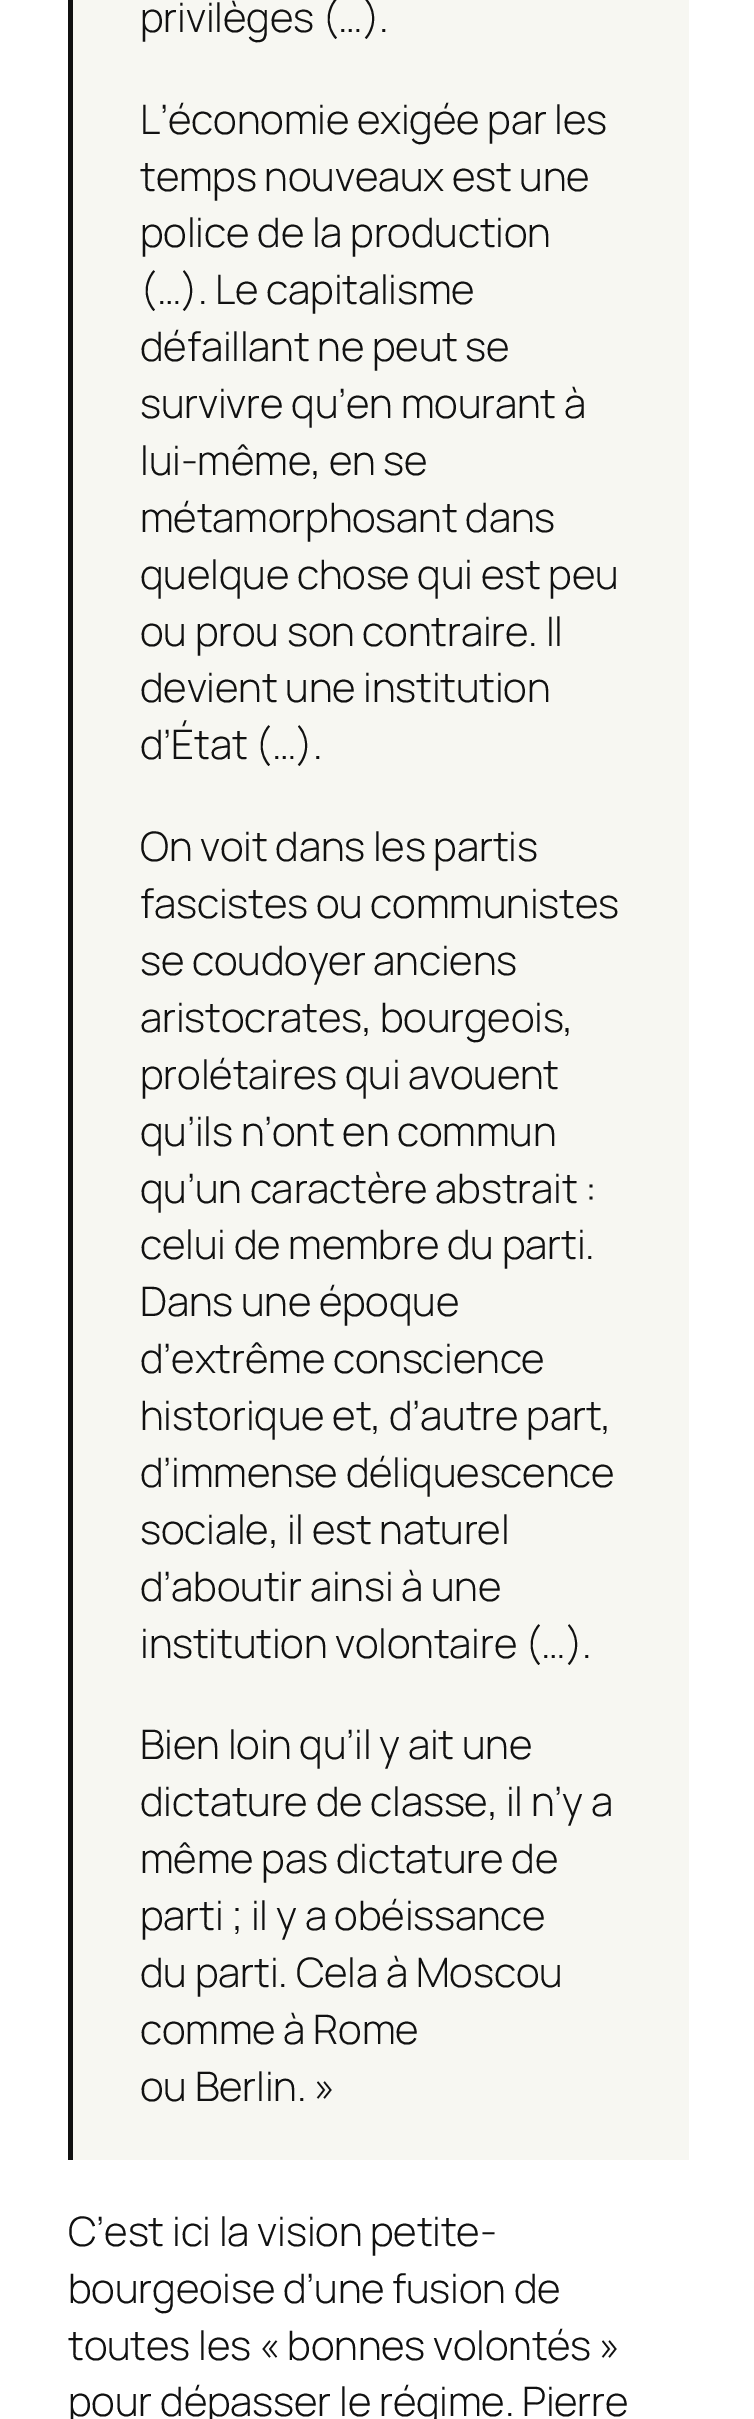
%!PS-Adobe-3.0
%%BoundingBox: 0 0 754 2419
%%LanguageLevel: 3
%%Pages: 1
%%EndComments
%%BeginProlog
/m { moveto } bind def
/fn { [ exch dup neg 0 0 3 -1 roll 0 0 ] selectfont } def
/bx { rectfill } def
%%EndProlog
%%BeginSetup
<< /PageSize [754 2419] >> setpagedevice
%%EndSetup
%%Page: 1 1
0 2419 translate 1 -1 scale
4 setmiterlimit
1 setgray
0 0 754 2419 bx
0.969 0.969 0.949 setrgbcolor
73 0 616 2160 bx
0.067 setgray
68 0 5 2160 bx
/Manrope-Light 40.6 fn
140 32 m -0.25 0 (privilèges \(…\).) ashow
140 134 m -0.25 0 (L’économie exigée par les) ashow
140 191 m -0.25 0 (temps nouveaux est une) ashow
140 247 m -0.25 0 (police de la production) ashow
140 304 m -0.25 0 (\(…\). Le capitalisme) ashow
140 361 m -0.25 0 (défaillant ne peut se) ashow
140 418 m -0.25 0 (survivre qu’en mourant à) ashow
140 475 m -0.25 0 (lui-même, en se) ashow
140 532 m -0.25 0 (métamorphosant dans) ashow
140 589 m -0.25 0 (quelque chose qui est peu) ashow
140 646 m -0.25 0 (ou prou son contraire. Il) ashow
140 702 m -0.25 0 (devient une institution) ashow
140 759 m -0.25 0 (d’État \(…\).) ashow
140 861 m -0.25 0 (On voit dans les partis) ashow
140 918 m -0.25 0 (fascistes ou communistes) ashow
140 975 m -0.25 0 (se coudoyer anciens) ashow
140 1032 m -0.25 0 (aristocrates, bourgeois,) ashow
140 1089 m -0.25 0 (prolétaires qui avouent) ashow
140 1146 m -0.25 0 (qu’ils n’ont en commun) ashow
140 1203 m -0.25 0 (qu’un caractère abstrait :) ashow
140 1259 m -0.25 0 (celui de membre du parti.) ashow
140 1316 m -0.25 0 (Dans une époque) ashow
140 1373 m -0.25 0 (d’extrême conscience) ashow
140 1430 m -0.25 0 (historique et, d’autre part,) ashow
140 1487 m -0.25 0 (d’immense déliquescence) ashow
140 1544 m -0.25 0 (sociale, il est naturel) ashow
140 1601 m -0.25 0 (d’aboutir ainsi à une) ashow
140 1658 m -0.25 0 (institution volontaire \(…\).) ashow
140 1759 m -0.25 0 (Bien loin qu’il y ait une) ashow
140 1816 m -0.25 0 (dictature de classe, il n’y a) ashow
140 1873 m -0.25 0 (même pas dictature de) ashow
140 1930 m -0.25 0 (parti ; il y a obéissance) ashow
140 1987 m -0.25 0 (du parti. Cela à Moscou) ashow
140 2044 m -0.25 0 (comme à Rome) ashow
140 2101 m -0.25 0 (ou Berlin. ») ashow
68 2246 m -0.25 0 (C’est ici la vision petite-) ashow
68 2303 m -0.25 0 (bourgeoise d’une fusion de) ashow
68 2360 m -0.25 0 (toutes les « bonnes volontés ») ashow
68 2416 m -0.25 0 (pour dépasser le régime. Pierre) ashow
showpage
%%EOF
